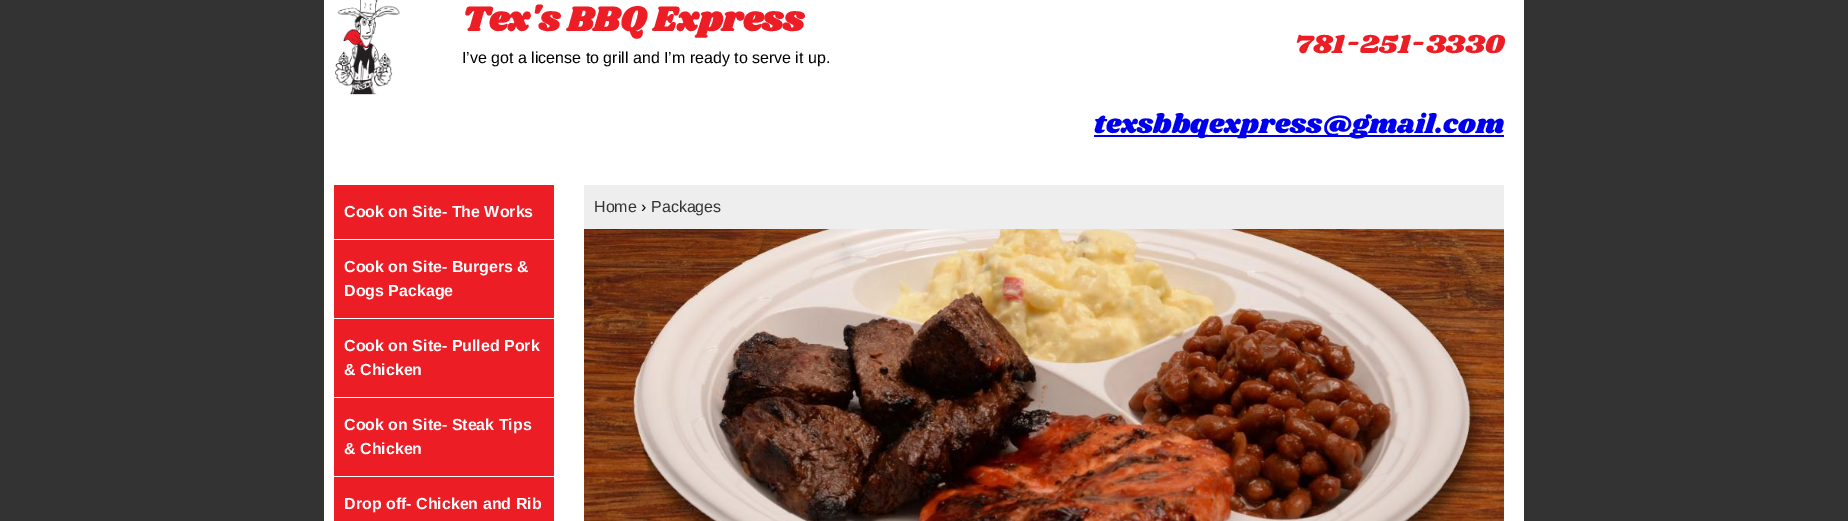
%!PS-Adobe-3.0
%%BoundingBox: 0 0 1848 521
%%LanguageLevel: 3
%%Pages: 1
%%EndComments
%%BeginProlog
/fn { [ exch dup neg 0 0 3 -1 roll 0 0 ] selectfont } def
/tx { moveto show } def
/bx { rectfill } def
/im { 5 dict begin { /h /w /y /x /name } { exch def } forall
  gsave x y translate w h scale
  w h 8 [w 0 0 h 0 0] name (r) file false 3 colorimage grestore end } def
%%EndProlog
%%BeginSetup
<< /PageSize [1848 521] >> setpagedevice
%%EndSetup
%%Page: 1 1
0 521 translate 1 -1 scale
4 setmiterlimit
0.2 setgray
0 0 1848 521 bx
1 setgray
324 0 1200 521 bx
(image0.raw) 335 0 65 95 im
/Shrikhand-Bold 35.25 fn
0.929 0.114 0.145 setrgbcolor
(Tex's BBQ Express) 462 31 tx
/LiberationSans-Regular 16 fn
0 setgray
(I’ve got a license to grill and I’m ready to serve it up.) 462 63 tx
/Shrikhand-Regular 27.25 fn
0.929 0.114 0.145 setrgbcolor
(781-251-3330) 1295 53 tx
0 0 0.933 setrgbcolor
1094 135 410 2 bx
(texsbbqexpress@gmail.com) 1094 133 tx
0.929 0.114 0.149 setrgbcolor
334 185 220 54 bx
/LiberationSans-Bold 16 fn
1 setgray
(Cook on Site- The Works) 344 217 tx
0.929 0.114 0.149 setrgbcolor
334 240 220 78 bx
1 setgray
(Cook on Site- Burgers &) 344 272 tx
(Dogs Package) 344 296 tx
0.929 0.114 0.149 setrgbcolor
334 319 220 78 bx
1 setgray
(Cook on Site- Pulled Pork) 344 351 tx
(& Chicken) 344 375 tx
0.929 0.114 0.149 setrgbcolor
334 398 220 78 bx
1 setgray
(Cook on Site- Steak Tips) 344 430 tx
(& Chicken) 344 454 tx
0.929 0.114 0.149 setrgbcolor
334 477 220 44 bx
1 setgray
(Drop off- Chicken and Rib) 344 509 tx
0.933 setgray
584 185 920 44 bx
/LiberationSans-Regular 16 fn
0.2 setgray
(Home) 594 212 tx
0 setgray
(›) 641 212 tx
0.2 setgray
(Packages) 651 212 tx
(image1.raw) 584 229 920 292 im
showpage
%%EOF
